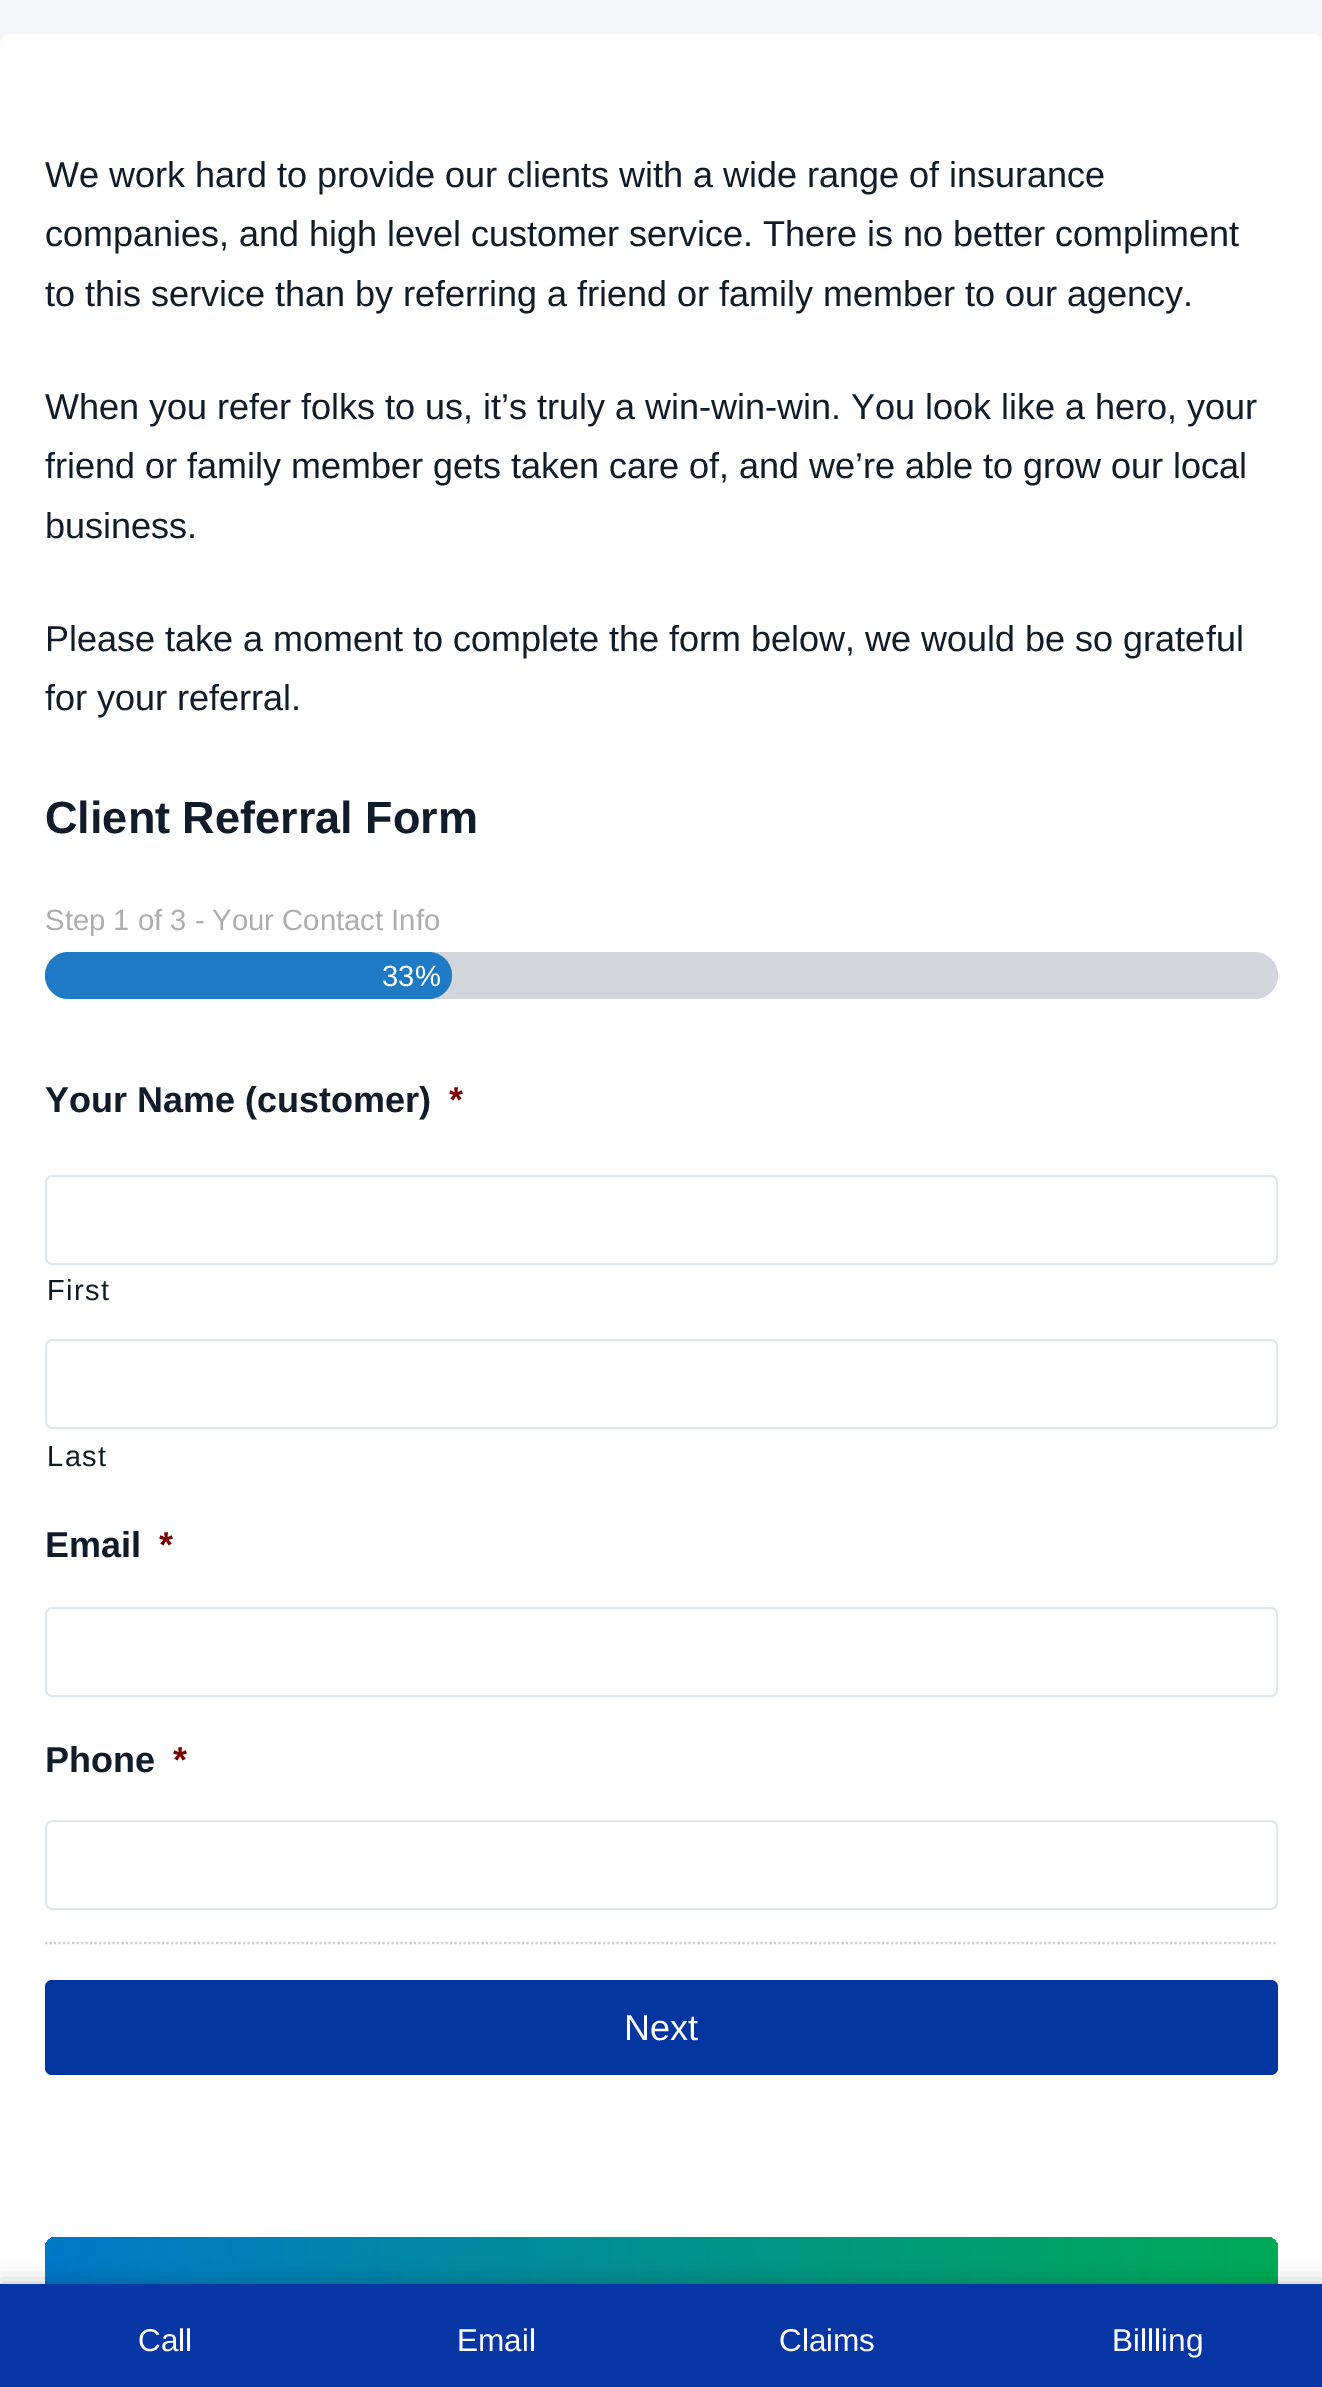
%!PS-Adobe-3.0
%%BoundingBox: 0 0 1322 2387
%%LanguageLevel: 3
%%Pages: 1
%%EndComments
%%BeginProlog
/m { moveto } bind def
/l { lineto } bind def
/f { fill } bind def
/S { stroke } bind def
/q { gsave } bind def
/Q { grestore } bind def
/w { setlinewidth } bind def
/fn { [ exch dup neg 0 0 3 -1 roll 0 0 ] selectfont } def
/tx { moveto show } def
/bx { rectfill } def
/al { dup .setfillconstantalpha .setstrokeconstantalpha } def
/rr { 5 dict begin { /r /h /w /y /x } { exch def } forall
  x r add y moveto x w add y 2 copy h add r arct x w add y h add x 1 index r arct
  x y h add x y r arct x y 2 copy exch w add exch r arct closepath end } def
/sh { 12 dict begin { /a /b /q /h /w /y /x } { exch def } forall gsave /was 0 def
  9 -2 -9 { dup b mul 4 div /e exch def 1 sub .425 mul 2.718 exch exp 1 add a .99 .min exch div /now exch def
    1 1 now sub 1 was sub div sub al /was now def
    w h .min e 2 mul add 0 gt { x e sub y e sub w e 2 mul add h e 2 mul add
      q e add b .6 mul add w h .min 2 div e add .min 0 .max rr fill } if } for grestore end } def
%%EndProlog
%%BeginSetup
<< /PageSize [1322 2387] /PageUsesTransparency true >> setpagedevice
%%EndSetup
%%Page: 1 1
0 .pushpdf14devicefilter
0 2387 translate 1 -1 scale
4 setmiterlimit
0.953 0.961 0.976 setrgbcolor
0 0 1322 2387 bx
1 setgray
0 34 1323 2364 11 rr f
/LiberationSans-Regular 36 fn
0.067 0.11 0.165 setrgbcolor
(We work hard to provide our clients with a wide range of insurance) 45 187 tx
(companies, and high level customer service. There is no better compliment) 45 246 tx
(to this service than by referring a friend or family member to our agency.) 45 306 tx
(When you refer folks to us, it’s truly a win-win-win. You look like a hero, your) 45 419 tx
(friend or family member gets taken care of, and we’re able to grow our local) 45 478 tx
(business.) 45 538 tx
(Please take a moment to complete the form below, we would be so grateful) 45 651 tx
(for your referral.) 45 710 tx
/LiberationSans-Bold 45 fn
(Client Referral Form) 45 833 tx
/LiberationSans-Regular 29.25 fn
0.678 setgray
(Step 1 of 3 - Your Contact Info) 45 930 tx
0.824 0.839 0.863 setrgbcolor
45 952 1233 47 23.5 rr f
0.118 0.478 0.769 setrgbcolor
45 952 407 47 23.5 rr f
1 setgray
(33%) 382 986 tx
/LiberationSans-Bold 36 fn
0.067 0.11 0.165 setrgbcolor
(Your Name \(customer\)) 45 1112 tx
0.475 0 0 setrgbcolor
(*) 449 1112 tx
0.882 0.91 0.929 setrgbcolor
2 w
46 1176 1231 88 6 rr S
/LiberationSans-Regular 29 fn
0.067 0.11 0.165 setrgbcolor
47 1300 m 1.5 0 (First) ashow
0.882 0.91 0.929 setrgbcolor
46 1340 1231 88 6 rr S
0.067 0.11 0.165 setrgbcolor
47 1466 m 1.5 0 (Last) ashow
/LiberationSans-Bold 36 fn
(Email) 45 1557 tx
0.475 0 0 setrgbcolor
(*) 159 1557 tx
0.882 0.91 0.929 setrgbcolor
46 1608 1231 88 6 rr S
0.067 0.11 0.165 setrgbcolor
(Phone) 45 1772 tx
0.475 0 0 setrgbcolor
(*) 173 1772 tx
0.882 0.91 0.929 setrgbcolor
46 1821 1231 88 6 rr S
0.8 setgray
2.2 w
[2.25 2.25] 0 setdash
45 1943 m 1278 1943 l S
0.012 0.208 0.627 setrgbcolor
45 1980 1233 95 7 rr f
/LiberationSans-Regular 36 fn
1 setgray
(Next) 624 2040 tx
q 45 2237 1233 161 11 rr clip newpath
<< /ShadingType 2 /ColorSpace /DeviceRGB /Coords [45 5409 1278 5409] /Extend [true true] /Function << /FunctionType 2 /Domain [0 1] /C0 [0 0.471 0.788] /C1 [0 0.667 0.337] /N 1 >> >> shfill Q
0 setgray
0 2284 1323 103 0 10 0.25 sh
0.031 0.216 0.647 setrgbcolor
0 2284 1322 103 bx
/LiberationSans-Regular 31.5 fn
1 setgray
(Call) 138 2351 tx
(Email) 457 2351 tx
(Claims) 779 2351 tx
(Billling) 1112 2351 tx
.poppdf14devicefilter showpage
%%EOF
